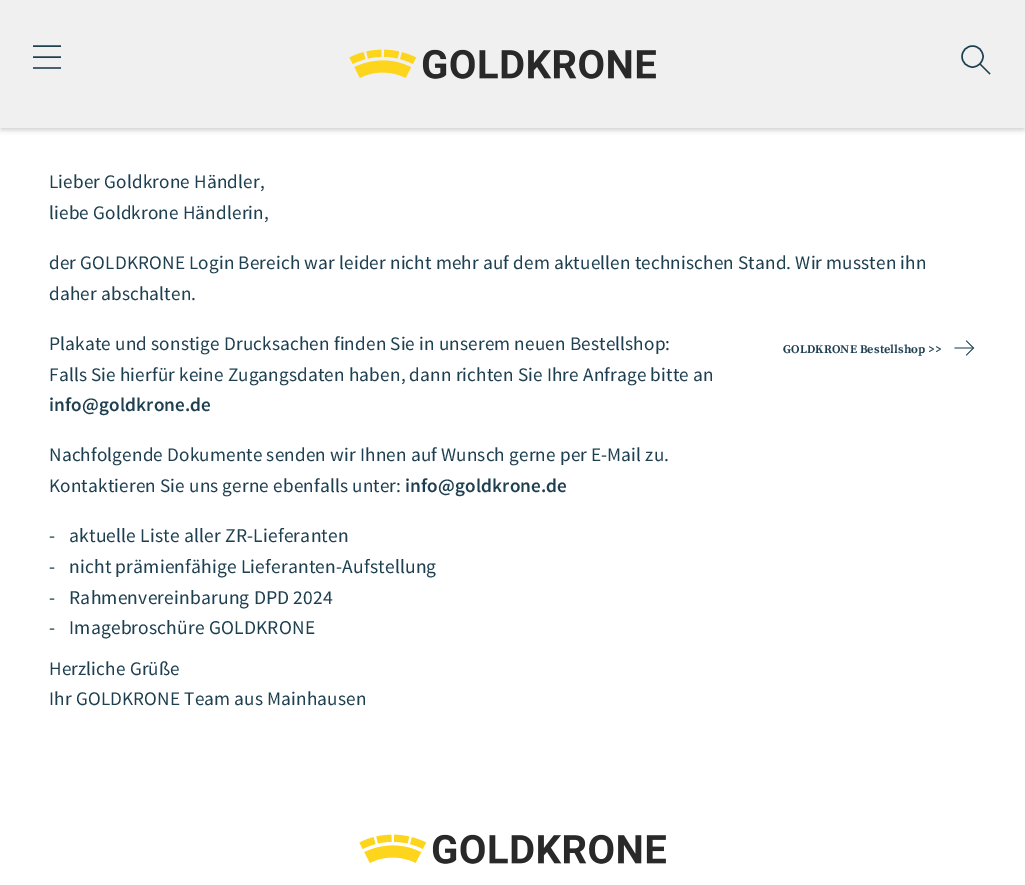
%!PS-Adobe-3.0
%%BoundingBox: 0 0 1025 885
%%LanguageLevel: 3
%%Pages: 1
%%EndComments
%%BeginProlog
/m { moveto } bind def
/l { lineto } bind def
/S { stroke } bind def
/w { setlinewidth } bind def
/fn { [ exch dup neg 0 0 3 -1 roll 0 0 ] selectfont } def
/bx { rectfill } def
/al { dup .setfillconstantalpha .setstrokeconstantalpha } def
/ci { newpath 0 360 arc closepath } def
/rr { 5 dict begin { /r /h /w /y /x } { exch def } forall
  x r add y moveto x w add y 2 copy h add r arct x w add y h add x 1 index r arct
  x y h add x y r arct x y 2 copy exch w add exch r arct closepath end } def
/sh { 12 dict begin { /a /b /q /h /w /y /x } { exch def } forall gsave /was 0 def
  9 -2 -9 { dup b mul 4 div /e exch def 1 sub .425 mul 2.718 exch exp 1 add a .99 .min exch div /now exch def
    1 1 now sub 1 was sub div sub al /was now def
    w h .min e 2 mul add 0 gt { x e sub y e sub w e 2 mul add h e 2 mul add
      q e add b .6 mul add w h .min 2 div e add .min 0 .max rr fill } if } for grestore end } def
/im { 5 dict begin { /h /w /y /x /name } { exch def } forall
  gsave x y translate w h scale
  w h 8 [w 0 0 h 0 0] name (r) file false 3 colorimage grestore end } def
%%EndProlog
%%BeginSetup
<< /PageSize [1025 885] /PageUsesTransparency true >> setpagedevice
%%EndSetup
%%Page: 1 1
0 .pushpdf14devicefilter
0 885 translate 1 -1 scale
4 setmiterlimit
1 setgray
0 0 1025 885 bx
0 setgray
1 4 1023 126 0 2.5 0.19 sh
0.941 setgray
0 0 1025 128 bx
0.118 0.247 0.314 setrgbcolor
1.6 w
33 46 m 61 46 l 33 57 m 61 57 l S
0.282 0.384 0.439 setrgbcolor
33 67 28 2 bx
(image0.raw) 349 49 307 30 im
0.118 0.247 0.314 setrgbcolor
1.4 w
972.5 56.5 10.5 ci S
1 setlinejoin
979.5 63.5 m 990 74 l S
/SourceSansPro-Regular 19.2 fn
49 188 m 0.15 0 (Lieber Goldkrone Händler,) ashow
49 219 m 0.15 0 (liebe Goldkrone Händlerin,) ashow
49 269 m 0.15 0 (der GOLDKRONE Login Bereich war leider nicht mehr auf dem aktuellen technischen Stand. Wir mussten ihn) ashow
49 300 m 0.15 0 (daher abschalten.) ashow
49 350 m 0.15 0 (Plakate und sonstige Drucksachen finden Sie in unserem neuen Bestellshop:) ashow
/SourceSerifPro-Bold 12 fn
783 353 m 0.1 0 (GOLDKRONE Bestellshop >>) ashow
(image1.raw) 954 340 21 16 im
/SourceSansPro-Regular 19.2 fn
49 381 m 0.15 0 (Falls Sie hierfür keine Zugangsdaten haben, dann richten Sie Ihre Anfrage bitte an) ashow
/SourceSansPro-SemiBold 19.2 fn
49 411 m 0.15 0 (info@goldkrone.de) ashow
/SourceSansPro-Regular 19.2 fn
49 461 m 0.15 0 (Nachfolgende Dokumente senden wir Ihnen auf Wunsch gerne per E-Mail zu.) ashow
49 492 m 0.15 0 (Kontaktieren Sie uns gerne ebenfalls unter:) ashow
/SourceSansPro-SemiBold 19.2 fn
405 492 m 0.15 0 (info@goldkrone.de) ashow
/SourceSansPro-Regular 19.5 fn
49 542 m 0.15 0 (-) ashow
69 542 m 0.15 0 (aktuelle Liste aller ZR-Lieferanten) ashow
49 573 m 0.15 0 (-) ashow
69 573 m 0.15 0 (nicht prämienfähige Lieferanten-Aufstellung) ashow
49 604 m 0.15 0 (-) ashow
69 604 m 0.15 0 (Rahmenvereinbarung DPD 2024) ashow
49 634 m 0.15 0 (-) ashow
69 634 m 0.15 0 (Imagebroschüre GOLDKRONE) ashow
/SourceSansPro-Regular 19.2 fn
49 675 m 0.15 0 (Herzliche Grüße) ashow
49 705 m 0.15 0 (Ihr GOLDKRONE Team aus Mainhausen) ashow
(image2.raw) 359 834 307 30 im
.poppdf14devicefilter showpage
%%EOF
